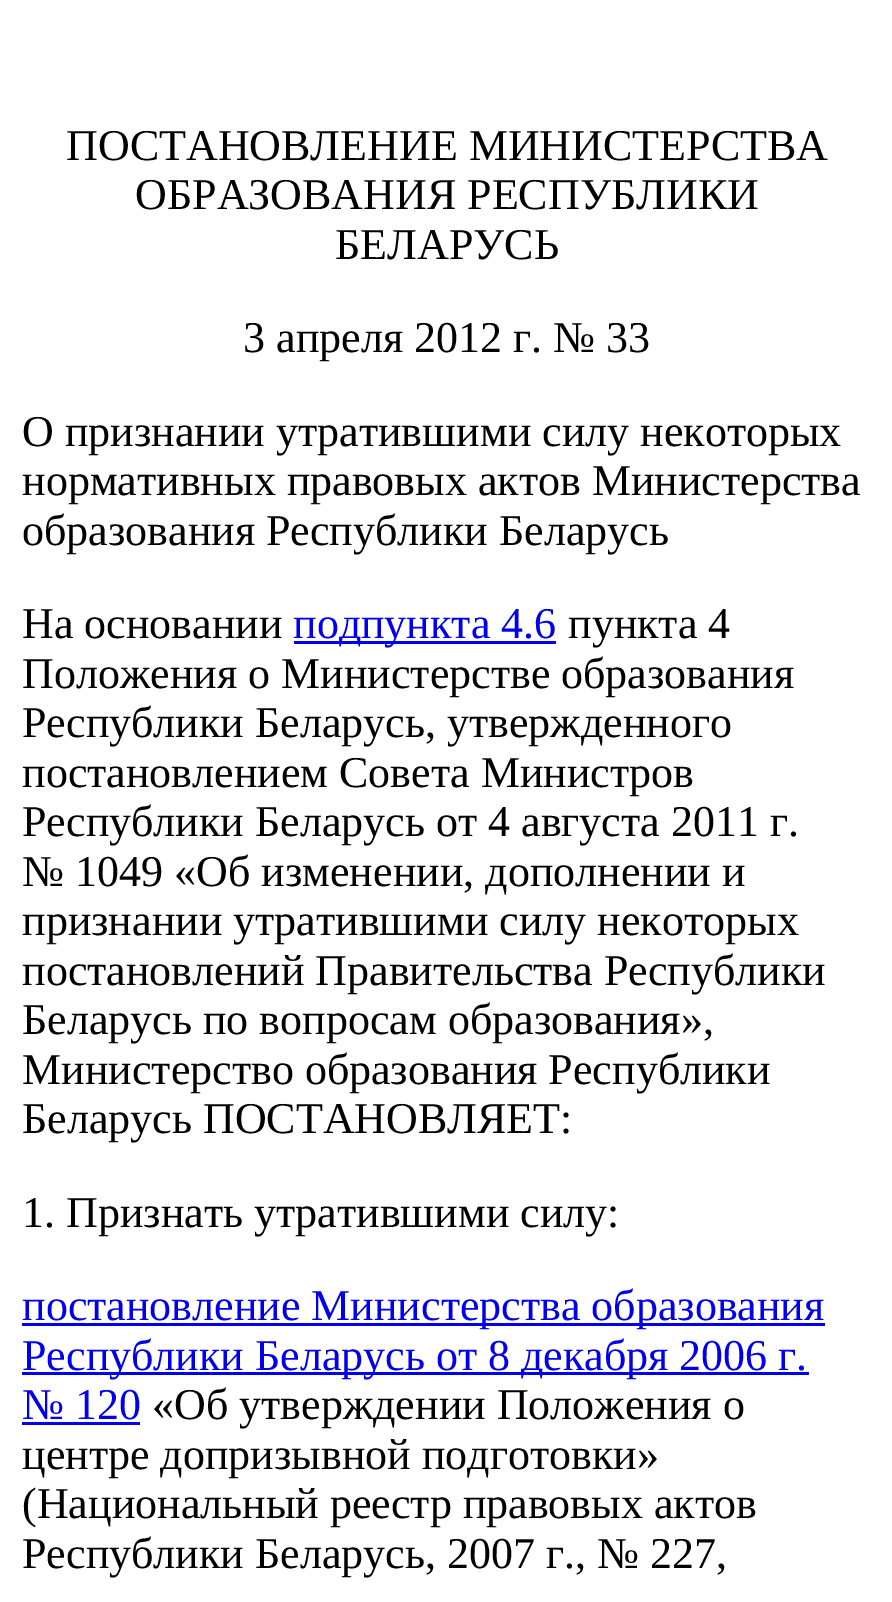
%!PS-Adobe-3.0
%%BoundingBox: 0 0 892 1602
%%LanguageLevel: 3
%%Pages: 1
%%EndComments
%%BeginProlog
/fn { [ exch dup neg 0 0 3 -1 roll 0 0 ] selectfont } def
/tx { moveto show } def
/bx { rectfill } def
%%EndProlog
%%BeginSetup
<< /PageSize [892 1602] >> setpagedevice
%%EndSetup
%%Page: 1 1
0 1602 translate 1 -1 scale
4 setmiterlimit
1 setgray
0 0 892 1602 bx
/LiberationSerif-Regular 44 fn
0 setgray
(ПОСТАНОВЛЕНИЕ МИНИСТЕРСТВА) 66 160 tx
(ОБРАЗОВАНИЯ РЕСПУБЛИКИ) 135 209 tx
(БЕЛАРУСЬ) 335 259 tx
(3 апреля 2012 г. № 33) 243 352 tx
(О признании утратившими силу некоторых) 22 446 tx
(нормативных правовых актов Министерства) 22 495 tx
(образования Республики Беларусь) 22 545 tx
(На основании) 22 638 tx
0 0 0.933 setrgbcolor
294 641 262 3 bx
(подпункта 4.6) 293 638 tx
0 setgray
(пункта 4) 568 638 tx
(Положения о Министерстве образования) 22 688 tx
(Республики Беларусь, утвержденного) 22 737 tx
(постановлением Совета Министров) 22 787 tx
(Республики Беларусь от 4 августа 2011 г.) 22 836 tx
(№ 1049 «Об изменении, дополнении и) 22 886 tx
(признании утратившими силу некоторых) 22 935 tx
(постановлений Правительства Республики) 22 985 tx
(Беларусь по вопросам образования»,) 22 1034 tx
(Министерство образования Республики) 22 1084 tx
(Беларусь ПОСТАНОВЛЯЕТ:) 22 1133 tx
(1. Признать утратившими силу:) 22 1227 tx
0 0 0.933 setrgbcolor
22 1323 803 3 bx
(постановление Министерства образования) 22 1320 tx
22 1372 787 3 bx
(Республики Беларусь от 8 декабря 2006 г.) 22 1370 tx
(№ 120) 22 1419 tx
22 1422 118 3 bx
0 setgray
(«Об утверждении Положения о) 152 1419 tx
(центре допризывной подготовки») 22 1469 tx
(\(Национальный реестр правовых актов) 22 1518 tx
(Республики Беларусь, 2007 г., № 227,) 22 1568 tx
showpage
%%EOF
